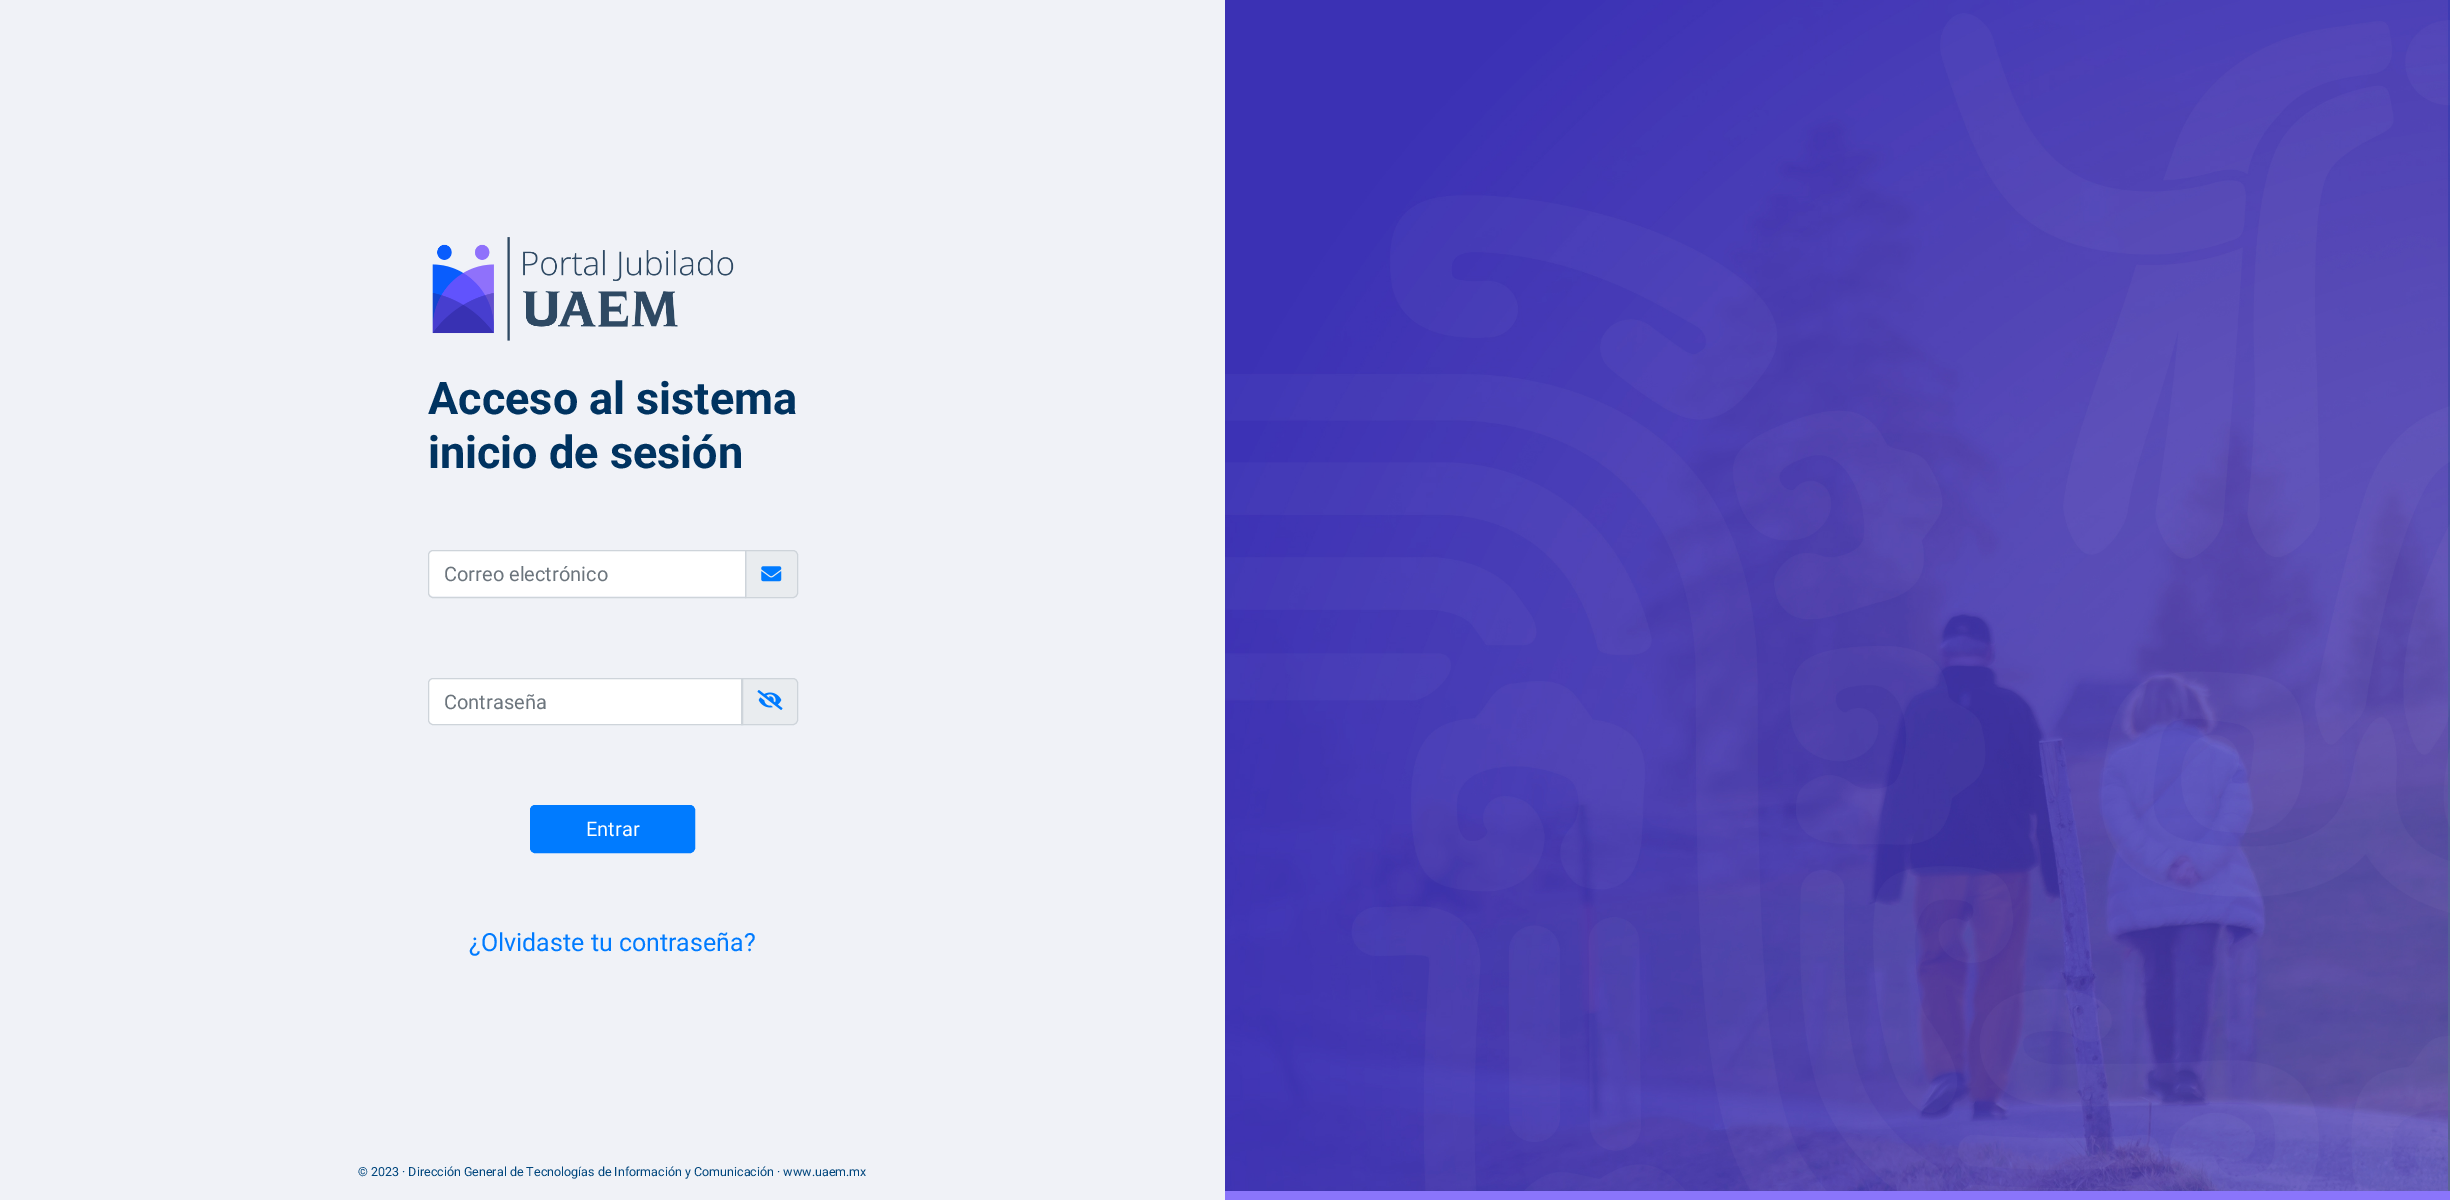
%!PS-Adobe-3.0
%%BoundingBox: 0 0 2450 1200
%%LanguageLevel: 3
%%Pages: 1
%%EndComments
%%BeginProlog
/m { moveto } bind def
/l { lineto } bind def
/c { curveto } bind def
/h { closepath } bind def
/f { fill } bind def
/S { stroke } bind def
/q { gsave } bind def
/Q { grestore } bind def
/fn { [ exch dup neg 0 0 3 -1 roll 0 0 ] selectfont } def
/tx { moveto show } def
/bx { rectfill } def
/rr { 5 dict begin { /r /h /w /y /x } { exch def } forall
  x r add y moveto x w add y 2 copy h add r arct x w add y h add x 1 index r arct
  x y h add x y r arct x y 2 copy exch w add exch r arct closepath end } def
/im { 5 dict begin { /h /w /y /x /name } { exch def } forall
  gsave x y translate w h scale
  w h 8 [w 0 0 h 0 0] name (r) file false 3 colorimage grestore end } def
%%EndProlog
%%BeginSetup
<< /PageSize [2450 1200] >> setpagedevice
%%EndSetup
%%Page: 1 1
0 1200 translate 1 -1 scale
4 setmiterlimit
0.941 0.949 0.969 setrgbcolor
0 0 2450 1200 bx
(image0.raw) 432 237 302 104 im
/Roboto-Bold 45 fn
0 0.2 0.376 setrgbcolor
(Acceso al sistema) 428 414 tx
(inicio de sesión) 428 468 tx
1 setgray
433 551 m 745 551 l 745 596 l 433 596 l 431 596 429 594 429 592 c 429 555 l 429 553 431 551 433 551 c h f
0.914 0.925 0.937 setrgbcolor
745.5 550.5 m 793 550.5 l 795.5 550.5 797.5 552.5 797.5 555 c 797.5 593 l 797.5 595.5 795.5 597.5 793 597.5 c 745.5 597.5 l h q f Q
0.808 0.831 0.855 setrgbcolor
S
433 550.5 m 745.5 550.5 l 745.5 597.5 l 433 597.5 l 430.5 597.5 428.5 595.5 428.5 593 c 428.5 555 l 428.5 552.5 430.5 550.5 433 550.5 c h S
/Roboto-Regular 20 fn
0.424 0.459 0.49 setrgbcolor
(Correo electrónico) 444 581 tx
(image1.raw) 761 566 21 16 im
1 setgray
433 679 m 741 679 l 741 724 l 433 724 l 431 724 429 722 429 720 c 429 683 l 429 681 431 679 433 679 c h f
0.914 0.925 0.937 setrgbcolor
741.5 678.5 m 793 678.5 l 795.5 678.5 797.5 680.5 797.5 683 c 797.5 720 l 797.5 722.5 795.5 724.5 793 724.5 c 741.5 724.5 l h q f Q
0.808 0.831 0.855 setrgbcolor
S
433 678.5 m 742.5 678.5 l 742.5 724.5 l 433 724.5 l 430.5 724.5 428.5 722.5 428.5 720 c 428.5 683 l 428.5 680.5 430.5 678.5 433 678.5 c h S
0.424 0.459 0.49 setrgbcolor
(Contraseña) 444 709 tx
(image2.raw) 757 690 26 20 im
0 0.482 1 setrgbcolor
530.5 805.5 164 47 4.5 rr q f Q
S
1 setgray
(Entrar) 586 836 tx
/Roboto-Regular 25 fn
0 0.482 1 setrgbcolor
(¿Olvidaste tu contraseña?) 469 951 tx
/Roboto-Regular 12.5 fn
0 0.275 0.49 setrgbcolor
(© 2023 · Dirección General de Tecnologías de Información y Comunicación · www.uaem.mx) 358 1176 tx
(image3.raw) 1225 0 1225 1191 im
0.541 0.459 0.984 setrgbcolor
1225 1191 1225 9 bx
showpage
%%EOF
